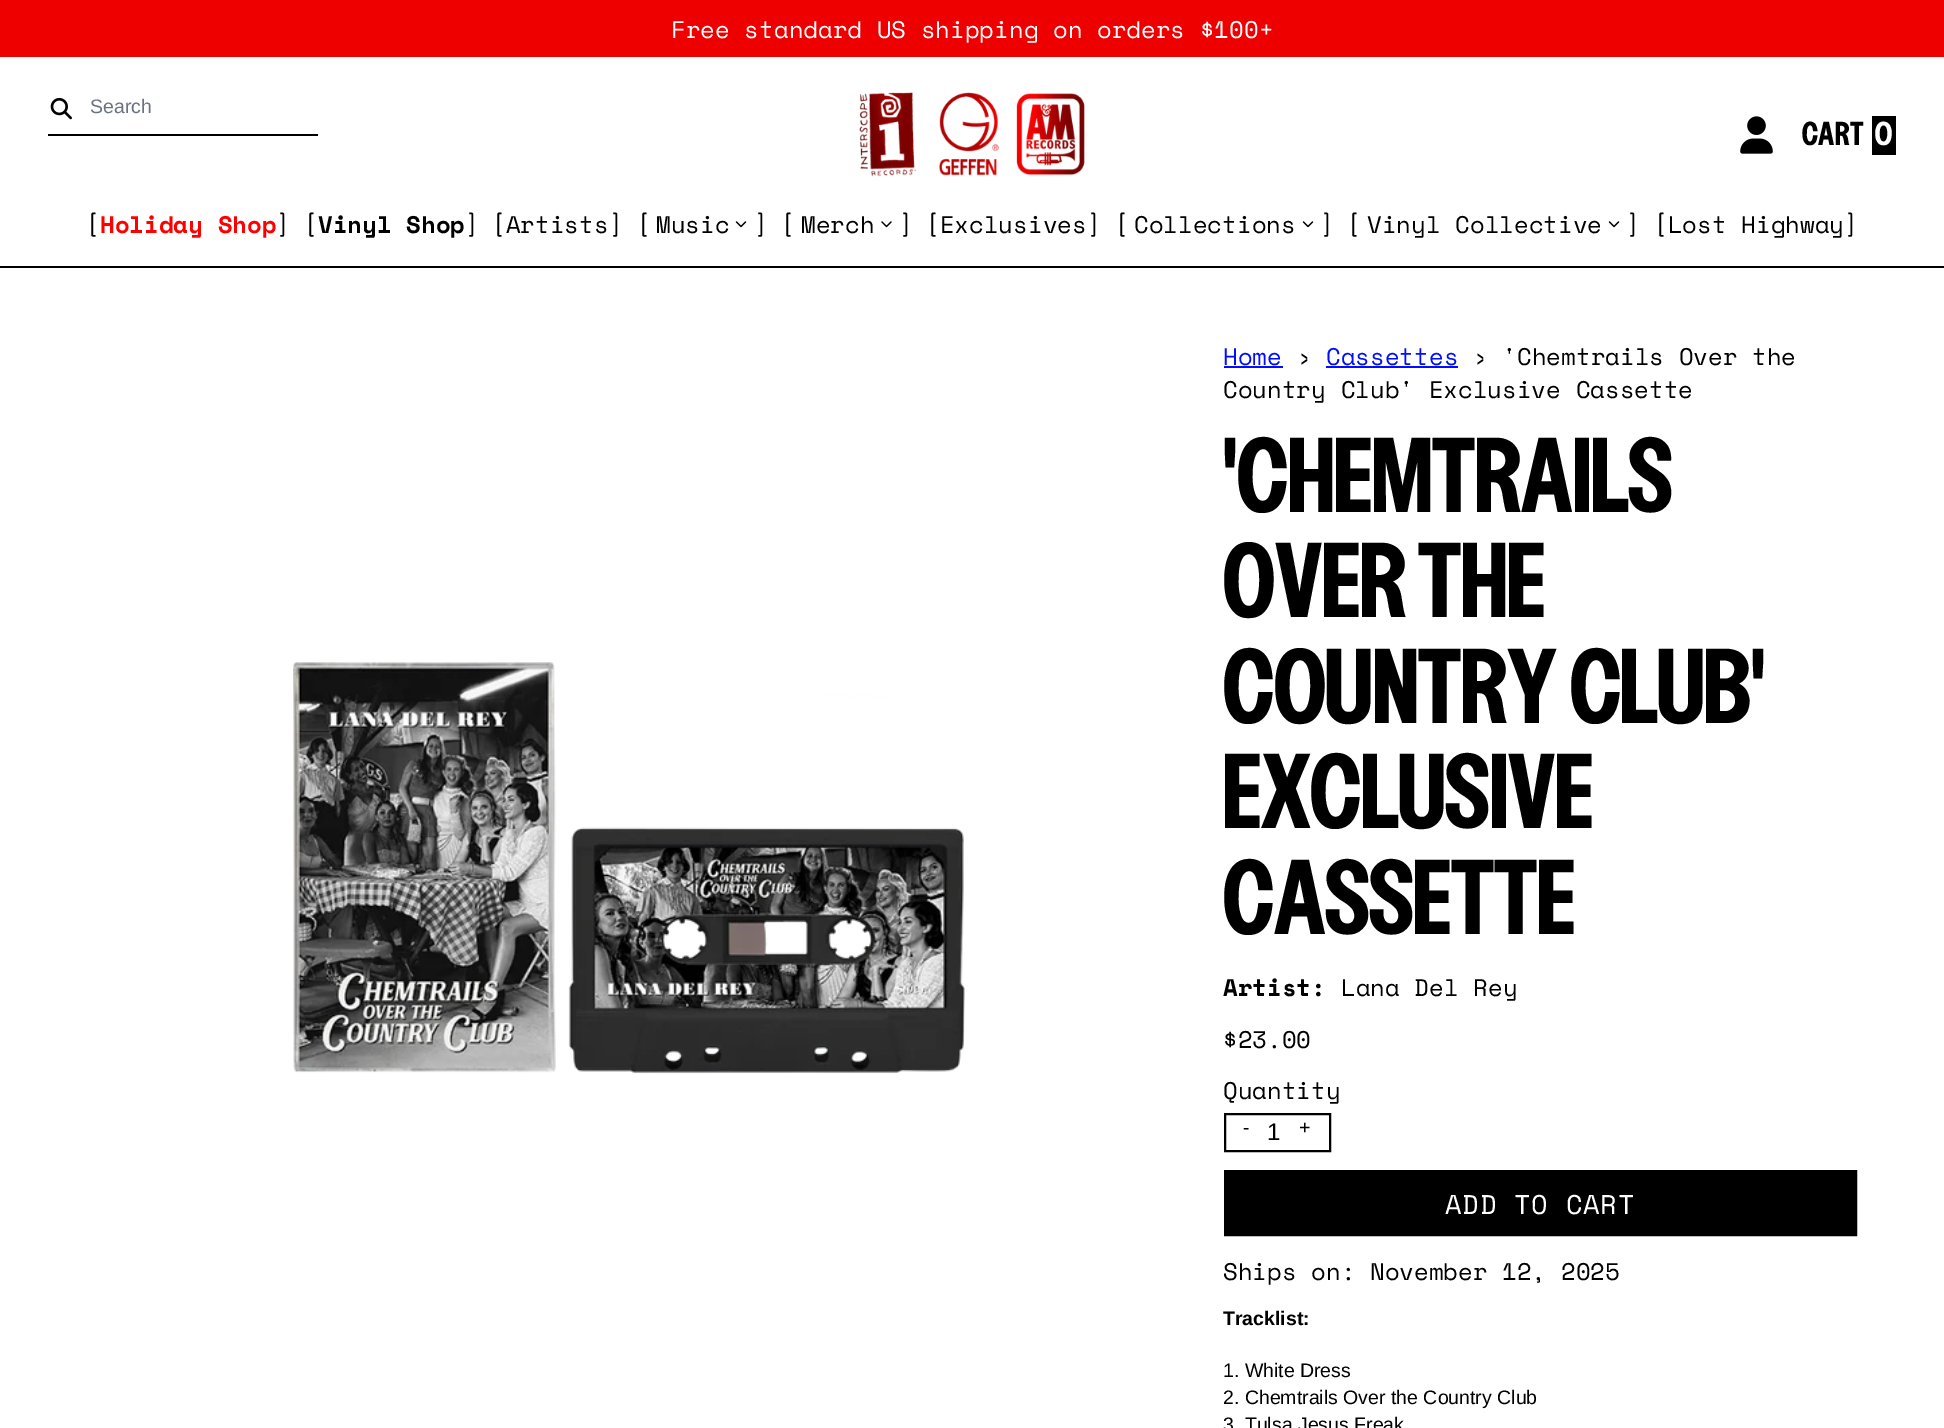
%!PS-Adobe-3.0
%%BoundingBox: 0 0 1944 1428
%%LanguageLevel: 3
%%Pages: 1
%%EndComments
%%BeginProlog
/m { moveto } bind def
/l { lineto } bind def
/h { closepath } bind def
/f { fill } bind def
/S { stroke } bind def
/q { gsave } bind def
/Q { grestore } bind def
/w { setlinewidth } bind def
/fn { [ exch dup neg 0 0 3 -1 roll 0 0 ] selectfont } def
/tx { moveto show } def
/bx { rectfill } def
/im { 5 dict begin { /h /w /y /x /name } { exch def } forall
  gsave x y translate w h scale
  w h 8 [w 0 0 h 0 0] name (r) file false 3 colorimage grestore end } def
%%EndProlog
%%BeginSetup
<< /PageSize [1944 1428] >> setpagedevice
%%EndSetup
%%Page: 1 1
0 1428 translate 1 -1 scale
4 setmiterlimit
1 setgray
0 0 1944 1428 bx
0.933 0 0 setrgbcolor
0 0 1944 57 bx
/SpaceMono-Regular 24 fn
1 setgray
(Free standard US shipping on orders $100+) 671 38 tx
0 setgray
0 266 1944 2 bx
(image0.raw) 50 97 22 23 im
48 134 270 2 bx
/LiberationSans-Regular 19.5 fn
0.42 0.447 0.502 setrgbcolor
(Search) 90 113 tx
(image1.raw) 859 92 226 85 im
(image2.raw) 1740 116 33 38 im
/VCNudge-Bold 30 fn
0 setgray
1802 145 m 0.5 0 (CART) ashow
1872 116 24 39 bx
1 setgray
(0) 1875 145 tx
/SpaceMono-Regular 24 fn
0 setgray
([) 85 233 tx
/SpaceMono-Bold 24 fn
1 0 0 setrgbcolor
(Holiday Shop) 100 233 tx
/SpaceMono-Regular 24 fn
0 setgray
(]) 276 233 tx
([) 303 233 tx
/SpaceMono-Bold 24 fn
(Vinyl Shop) 318 233 tx
/SpaceMono-Regular 24 fn
(]) 465 233 tx
([Artists]) 491 233 tx
([) 636 233 tx
(Music) 656 233 tx
(image3.raw) 735 221 12 7 im
(]) 754 233 tx
([) 780 233 tx
(Merch) 801 233 tx
(image4.raw) 881 221 11 7 im
(]) 899 233 tx
([Exclusives]) 925 233 tx
([) 1114 233 tx
(Collections) 1134 233 tx
(image3.raw) 1302 221 12 7 im
(]) 1320 233 tx
([) 1346 233 tx
(Vinyl Collective) 1367 233 tx
(image3.raw) 1608 221 12 7 im
(]) 1626 233 tx
([Lost Highway]) 1653 233 tx
(image5.raw) 293 662 672 412 im
0 0.051 1 setrgbcolor
(Home) 1223 365 tx
1224 366 59 2 bx
0 setgray
(›) 1297 365 tx
0 0.051 1 setrgbcolor
(Cassettes) 1326 365 tx
1326 366 132 2 bx
0 setgray
(› 'Chemtrails Over the) 1473 365 tx
(Country Club' Exclusive Cassette) 1223 398 tx
/VCNudge-Bold 96 fn
('CHEMTRAILS) 1223 512 tx
(OVER THE) 1223 617 tx
(COUNTRY CLUB') 1223 723 tx
(EXCLUSIVE) 1223 828 tx
(CASSETTE) 1223 934 tx
/SpaceMono-Bold 24 fn
(Artist:) 1223 996 tx
/SpaceMono-Regular 24 fn
(Lana Del Rey) 1341 996 tx
($23.00) 1223 1048 tx
(Quantity) 1223 1099 tx
2 w
1225 1114 105 37 rectstroke
/LiberationSans-Regular 19.5 fn
(-) 1243 1134 tx
/LiberationSans-Regular 24 fn
(1) 1267 1140 tx
/LiberationSans-Regular 19.5 fn
(+) 1299 1134 tx
1225 1171 m 1856 1171 l 1856 1235 l 1225 1235 l h q f Q
S
/SpaceMono-Regular 27 fn
1 setgray
1445 1214 m 0.75 0 (ADD TO CART) ashow
/SpaceMono-Regular 24 fn
0 setgray
(Ships on: November 12, 2025) 1223 1280 tx
/LiberationSans-Bold 19.5 fn
(Tracklist:) 1223 1325 tx
/LiberationSans-Regular 19.5 fn
(1. White Dress) 1223 1377 tx
(2. Chemtrails Over the Country Club) 1223 1404 tx
(3. Tulsa Jesus Freak) 1223 1431 tx
showpage
%%EOF
